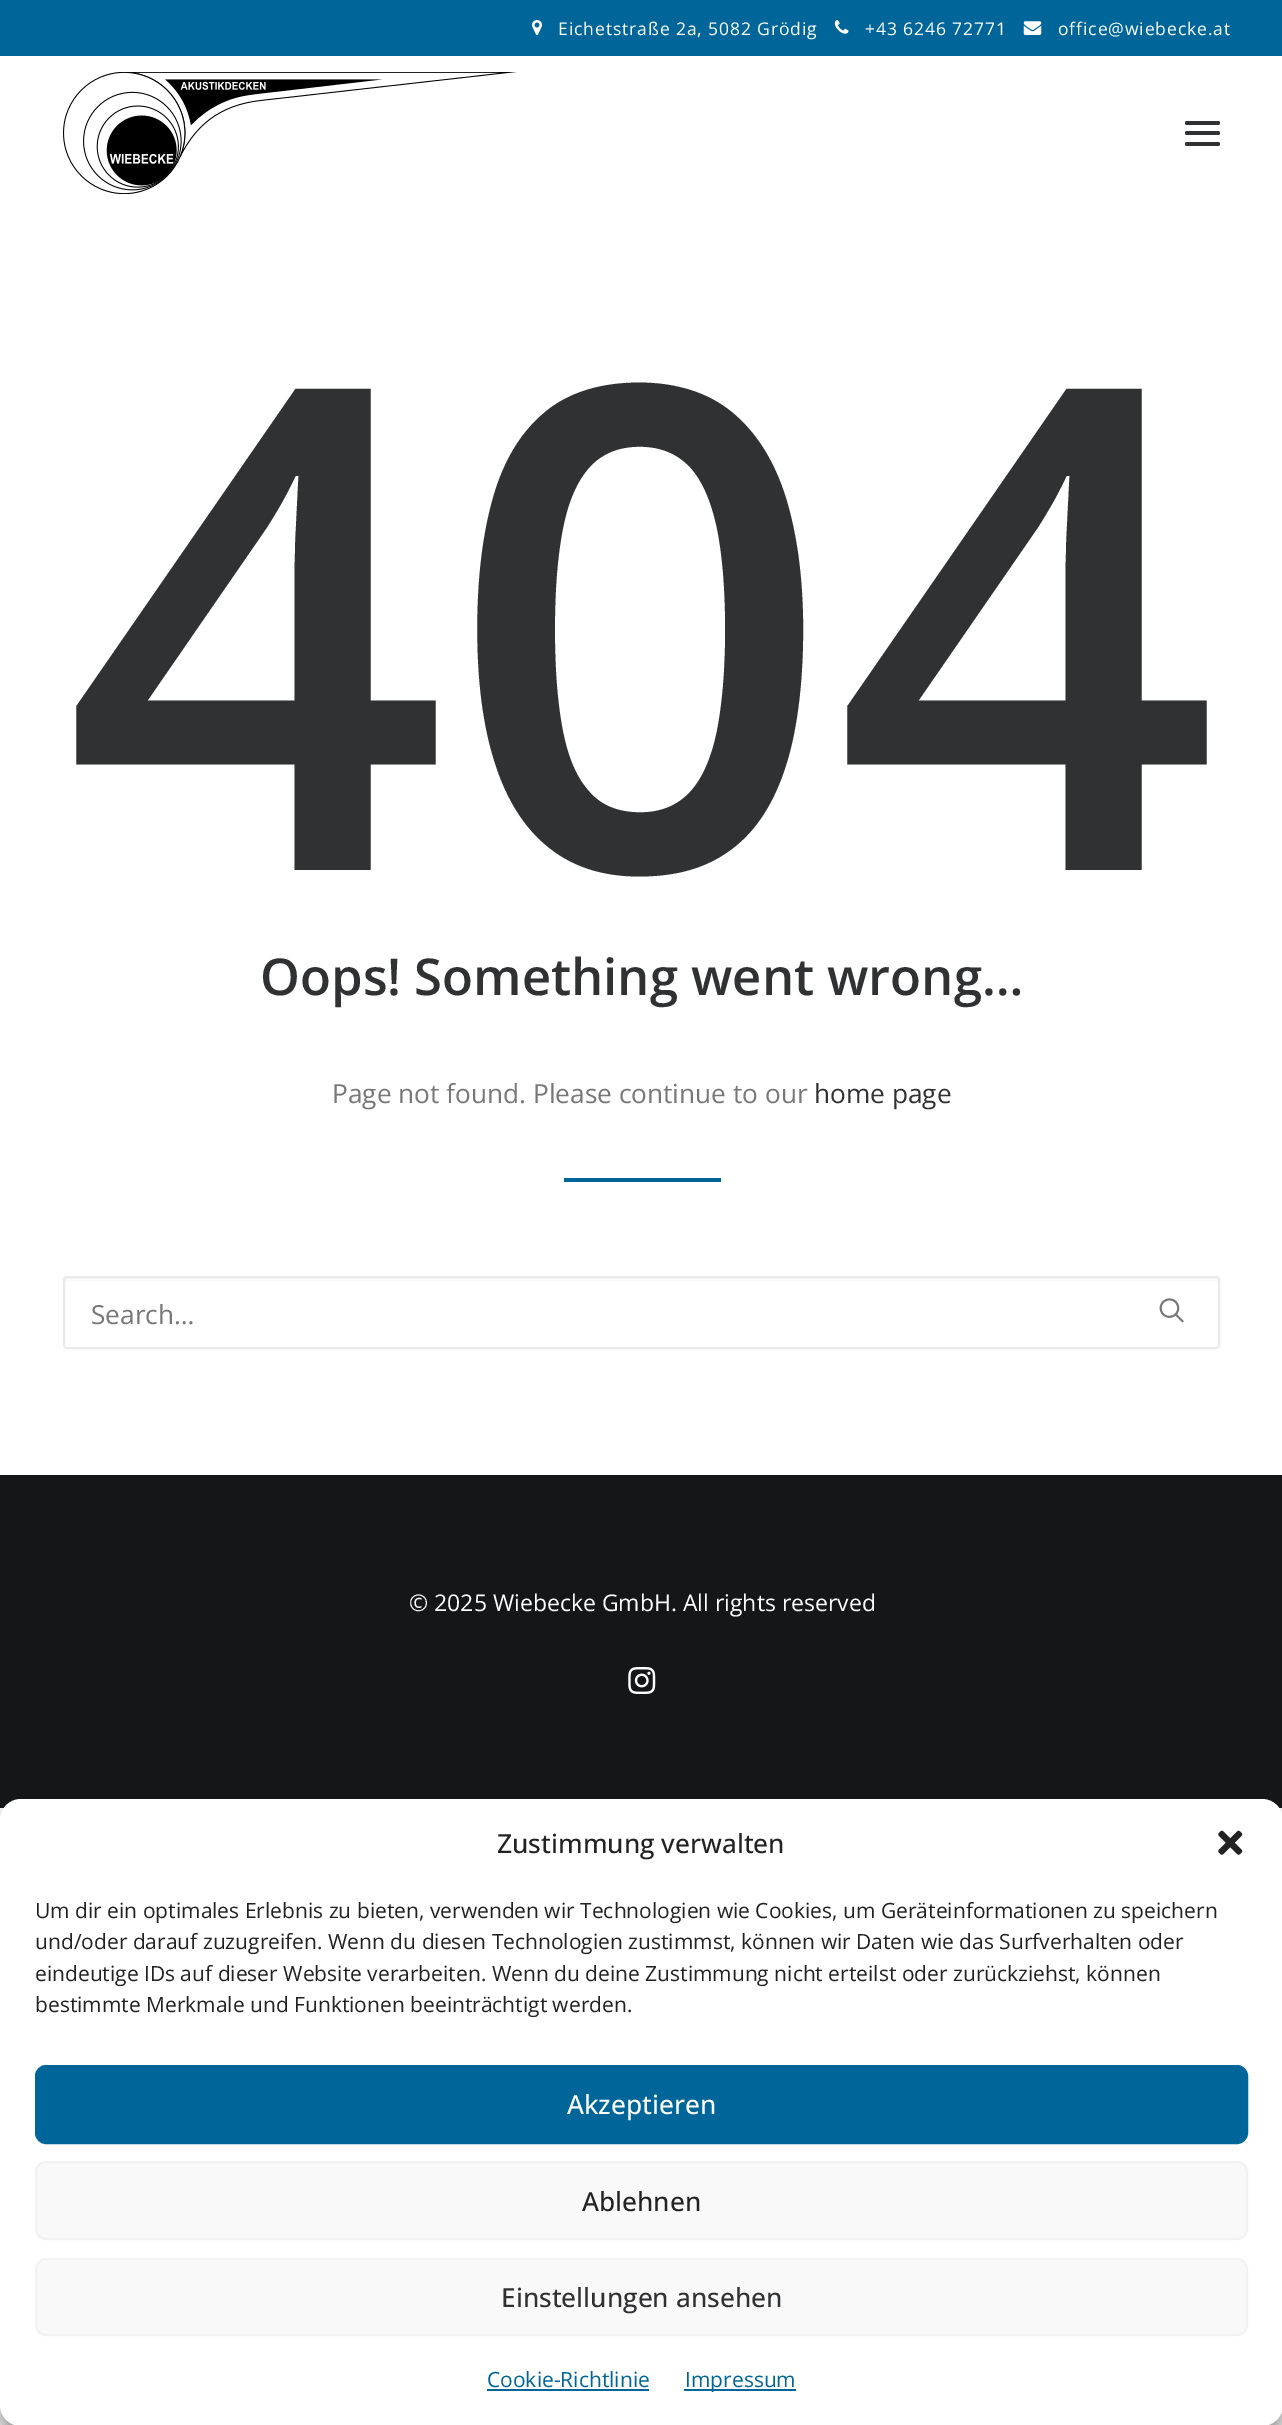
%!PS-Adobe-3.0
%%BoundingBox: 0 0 1282 2425
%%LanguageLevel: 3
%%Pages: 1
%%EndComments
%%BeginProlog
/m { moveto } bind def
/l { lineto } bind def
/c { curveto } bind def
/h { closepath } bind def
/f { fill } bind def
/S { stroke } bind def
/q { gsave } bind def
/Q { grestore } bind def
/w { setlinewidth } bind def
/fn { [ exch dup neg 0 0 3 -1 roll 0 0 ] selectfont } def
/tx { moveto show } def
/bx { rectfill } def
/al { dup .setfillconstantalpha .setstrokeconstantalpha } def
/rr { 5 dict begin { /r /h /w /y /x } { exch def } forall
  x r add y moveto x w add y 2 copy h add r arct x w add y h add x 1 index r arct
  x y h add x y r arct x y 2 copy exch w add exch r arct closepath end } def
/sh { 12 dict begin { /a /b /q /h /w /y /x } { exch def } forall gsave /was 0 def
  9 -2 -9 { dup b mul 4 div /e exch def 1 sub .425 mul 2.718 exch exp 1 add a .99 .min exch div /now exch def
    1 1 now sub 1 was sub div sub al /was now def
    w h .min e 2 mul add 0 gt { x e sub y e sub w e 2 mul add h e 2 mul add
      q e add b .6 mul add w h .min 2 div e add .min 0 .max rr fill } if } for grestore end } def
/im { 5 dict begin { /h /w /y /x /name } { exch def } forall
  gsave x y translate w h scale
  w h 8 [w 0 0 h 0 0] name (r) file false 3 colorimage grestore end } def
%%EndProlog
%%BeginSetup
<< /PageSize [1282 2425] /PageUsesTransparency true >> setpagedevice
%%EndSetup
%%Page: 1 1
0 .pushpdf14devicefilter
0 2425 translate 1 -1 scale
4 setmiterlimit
0.969 setgray
0 0 1282 2425 bx
0 0.4 0.6 setrgbcolor
0 0 1282 56 bx
(image0.raw) 532 20 10 15 im
/OpenSans-Regular 17.5 fn
1 setgray
558 35 m 0.9 0 (Eichetstraße 2a, 5082 Grödig) ashow
(image1.raw) 834 20 15 14 im
865 35 m 0.9 0 (+43 6246 72771) ashow
(image2.raw) 1023 21 19 14 im
1058 35 m 0.9 0 (office@wiebecke.at) ashow
0 56 1282 1419 bx
(image3.raw) 63 72 454 122 im
0.188 0.192 0.2 setrgbcolor
1185 131 35 4 2 rr f
1185 121 35 4 2 rr f
1185 142 35 4 2 rr f
/OpenSans-SemiBold 674 fn
(404) 63 870 tx
/OpenSans-SemiBold 50.75 fn
(Oops! Something went wrong…) 260 995 tx
/OpenSans-Regular 26.25 fn
0.467 setgray
(Page not found. Please continue to our) 332 1103 tx
0.188 0.192 0.2 setrgbcolor
(home page) 814 1103 tx
0 0.4 0.6 setrgbcolor
564 1178 157 4 bx
0.976 setgray
66 1281 m 1216 1281 l 1217 1281 1218 1282 1218 1283 c 1218 1282 1218 1280 1217 1279 c 1216 1278 l 67 1278 l 65 1279 l 65 1283 l h f
0.918 setgray
2 w
64 1277 1155 71 3 rr S
0.467 setgray
(Search…) 91 1324 tx
(image4.raw) 1159 1298 25 25 im
0.078 0.086 0.094 setrgbcolor
0 1475 1282 333 bx
/OpenSans-Regular 23 fn
1 setgray
(© 2025 Wiebecke GmbH. All rights reserved) 409 1611 tx
(image5.raw) 628 1667 28 27 im
0 setgray
0 1810 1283 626 21 5 0.23 sh
0 1817 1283 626 21 17.5 0.19 sh
1 setgray
0 1799 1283 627 21 rr f
/OpenSans-Medium 26.25 fn
0.133 setgray
(Zustimmung verwalten) 497 1853 tx
(image6.raw) 1218 1830 25 25 im
/OpenSans-Regular 21 fn
(Um dir ein optimales Erlebnis zu bieten, verwenden wir Technologien wie Cookies, um Geräteinformationen zu speichern) 35 1918 tx
(und/oder darauf zuzugreifen. Wenn du diesen Technologien zustimmst, können wir Daten wie das Surfverhalten oder) 35 1949 tx
(eindeutige IDs auf dieser Website verarbeiten. Wenn du deine Zustimmung nicht erteilst oder zurückziehst, können) 35 1981 tx
(bestimmte Merkmale und Funktionen beeinträchtigt werden.) 35 2012 tx
0 0.4 0.6 setrgbcolor
36 2066 1211 77 10 rr q f Q
S
/OpenSans-Medium 26.25 fn
1 setgray
(Akzeptieren) 567 2114 tx
0.976 setgray
36 2162 1211 77 10 rr q f Q
0.949 setgray
S
0.133 setgray
(Ablehnen) 582 2211 tx
0.976 setgray
36 2259 1211 76 10 rr q f Q
0.949 setgray
S
0.188 0.192 0.2 setrgbcolor
(Einstellungen ansehen) 501 2307 tx
/OpenSans-Regular 21 fn
0 0.4 0.6 setrgbcolor
(Cookie-Richtlinie) 487 2387 tx
487 2389 162 2 bx
684 2389 112 2 bx
(Impressum) 685 2387 tx
.poppdf14devicefilter showpage
%%EOF
